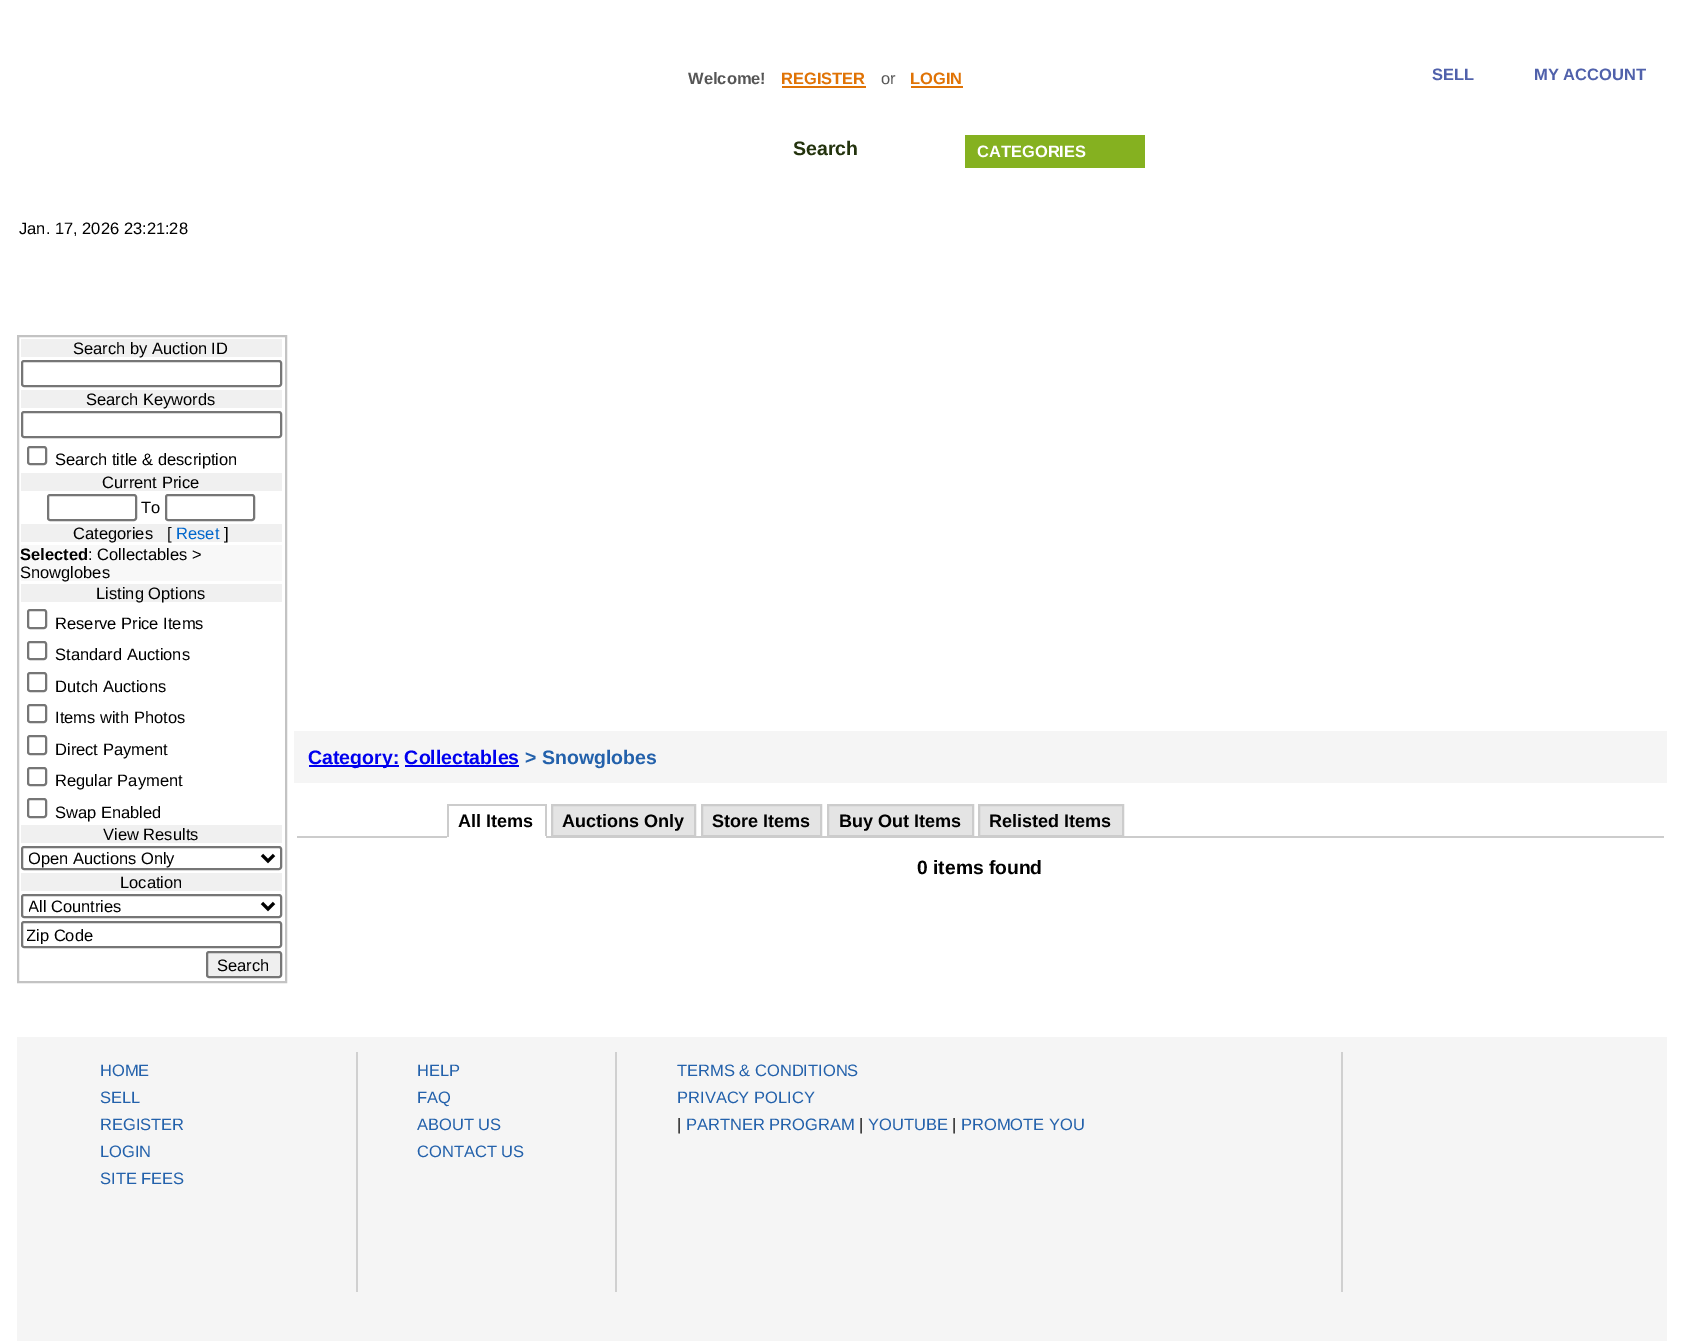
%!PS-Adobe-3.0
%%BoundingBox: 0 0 1681 1341
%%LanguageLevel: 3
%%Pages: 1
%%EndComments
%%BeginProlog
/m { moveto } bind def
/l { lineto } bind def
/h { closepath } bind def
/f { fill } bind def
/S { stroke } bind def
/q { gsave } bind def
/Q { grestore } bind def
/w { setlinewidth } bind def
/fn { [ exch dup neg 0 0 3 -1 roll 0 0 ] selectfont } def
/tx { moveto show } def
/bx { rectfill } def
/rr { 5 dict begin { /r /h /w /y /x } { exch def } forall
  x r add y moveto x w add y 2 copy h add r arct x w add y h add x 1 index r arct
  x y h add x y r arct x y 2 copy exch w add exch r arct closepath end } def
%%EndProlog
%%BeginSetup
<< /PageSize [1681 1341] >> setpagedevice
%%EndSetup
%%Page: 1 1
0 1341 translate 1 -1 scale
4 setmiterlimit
1 setgray
0 0 1681 1341 bx
/LiberationSans-Bold 16.5 fn
0.337 setgray
(Welcome!) 688 84 tx
0.878 0.451 0.02 setrgbcolor
(REGISTER) 781 84 tx
782 86 84 2 bx
/LiberationSans-Regular 16.5 fn
0.337 setgray
(or) 881 84 tx
/LiberationSans-Bold 16.5 fn
0.878 0.451 0.02 setrgbcolor
(LOGIN) 910 84 tx
911 86 52 2 bx
0.314 0.38 0.671 setrgbcolor
(SELL) 1432 80 tx
(MY ACCOUNT) 1534 80 tx
/LiberationSans-Bold 19.5 fn
0.137 0.2 0.051 setrgbcolor
(Search) 793 155 tx
0.522 0.694 0.125 setrgbcolor
965 135 180 33 bx
/LiberationSans-Bold 16.5 fn
1 setgray
(CATEGORIES) 977 157 tx
/LiberationSans-Regular 16.5 fn
0 setgray
(Jan. 17, 2026 23:21:28) 19 234 tx
0.765 setgray
2 w
18 336 268 646 rectstroke
0.941 setgray
21 339 261 18 bx
0 setgray
(Search by Auction ID) 73 354 tx
0.463 setgray
22 361 259 25 2 rr S
0.941 setgray
21 390 261 18 bx
0 setgray
(Search Keywords) 86 405 tx
0.463 setgray
22 412 259 25 2 rr S
28 447 18 17 2 rr S
0 setgray
(Search title & description) 55 465 tx
0.941 setgray
21 473 261 18 bx
0 setgray
(Current Price) 102 488 tx
0.463 setgray
48 495 88 25 2 rr S
0 setgray
(To) 141 513 tx
0.463 setgray
166 495 88 25 2 rr S
0.941 setgray
21 524 261 18 bx
0 setgray
(Categories   [) 73 539 tx
0 0.4 0.8 setrgbcolor
(Reset) 176 539 tx
0 setgray
(]) 224 539 tx
0.973 setgray
21 545 261 36 bx
/LiberationSans-Bold 16.5 fn
0 setgray
(Selected) 20 560 tx
/LiberationSans-Regular 16.5 fn
(: Collectables >) 88 560 tx
(Snowglobes) 20 578 tx
0.941 setgray
21 584 261 18 bx
0 setgray
(Listing Options) 96 599 tx
0.463 setgray
28 610 18 18 2 rr S
0 setgray
(Reserve Price Items) 55 629 tx
0.463 setgray
28 642 18 17 2 rr S
0 setgray
(Standard Auctions) 55 660 tx
0.463 setgray
28 673 18 18 2 rr S
0 setgray
(Dutch Auctions) 55 692 tx
0.463 setgray
28 705 18 17 2 rr S
0 setgray
(Items with Photos) 55 723 tx
0.463 setgray
28 736 18 18 2 rr S
0 setgray
(Direct Payment) 55 755 tx
0.463 setgray
28 768 18 17 2 rr S
0 setgray
(Regular Payment) 55 786 tx
0.463 setgray
28 799 18 18 2 rr S
0 setgray
(Swap Enabled) 55 818 tx
0.941 setgray
21 825 261 18 bx
0 setgray
(View Results) 103 840 tx
0.463 setgray
22 847 259 22 2 rr S
0 setgray
3 w
262 855 m 268 861 l 274 855 l S
q
29 848 228 21 rectclip
(Open Auctions Only) 28 864 tx
Q
0.941 setgray
21 873 261 18 bx
0 setgray
(Location) 120 888 tx
0.463 setgray
2 w
22 895 259 22 2 rr S
0 setgray
3 w
262 903 m 268 909 l 274 903 l S
q
29 896 228 21 rectclip
(All Countries) 28 912 tx
Q
0.463 setgray
2 w
22 922 259 25 2 rr S
q
27 926 249 18 rectclip
0 setgray
(Zip Code) 26 941 tx
Q
0.937 setgray
207 952 74 25 2 rr q f Q
0.463 setgray
S
0 setgray
(Search) 217 971 tx
0.961 setgray
294 731 1373 52 bx
0 0 0.933 setrgbcolor
309 765 90 2 bx
/LiberationSans-Bold 19.5 fn
(Category: Collectables) 308 764 tx
0.137 0.38 0.671 setrgbcolor
(> Snowglobes) 525 764 tx
0 0 0.933 setrgbcolor
405 765 114 2 bx
0.8 setgray
297 836 1367 2 bx
/LiberationSans-Bold 18 fn
0 setgray
(All Items) 458 827 tx
0.8 setgray
447 804 99 2 bx
545 804 2 33 bx
1 setgray
447 836 99 2 bx
0.8 setgray
447 804 2 33 bx
0.894 setgray
552 805 m 695 805 l 695 836 l 552 836 l h q f Q
0.8 setgray
S
0 setgray
(Auctions Only) 562 827 tx
0.894 setgray
702 805 m 821 805 l 821 836 l 702 836 l h q f Q
0.8 setgray
S
0 setgray
(Store Items) 712 827 tx
0.894 setgray
828 805 m 973 805 l 973 836 l 828 836 l h q f Q
0.8 setgray
S
0 setgray
(Buy Out Items) 839 827 tx
0.894 setgray
979 805 m 1123 805 l 1123 836 l 979 836 l h q f Q
0.8 setgray
S
0 setgray
(Relisted Items) 989 827 tx
/LiberationSans-Bold 19.25 fn
(0 items found) 917 874 tx
0.961 setgray
17 1037 1650 304 bx
0.816 setgray
356 1052 2 240 bx
/LiberationSans-Regular 16.5 fn
0.137 0.38 0.671 setrgbcolor
(HOME) 100 1076 tx
(SELL) 100 1103 tx
(REGISTER) 100 1130 tx
(LOGIN) 100 1157 tx
(SITE FEES) 100 1184 tx
0.816 setgray
615 1052 2 240 bx
0.137 0.38 0.671 setrgbcolor
(HELP) 417 1076 tx
(FAQ) 417 1103 tx
(ABOUT US) 417 1130 tx
(CONTACT US) 417 1157 tx
0.816 setgray
1341 1052 2 240 bx
0.137 0.38 0.671 setrgbcolor
(TERMS & CONDITIONS) 677 1076 tx
(PRIVACY POLICY) 677 1103 tx
0 setgray
(|) 677 1130 tx
0.137 0.38 0.671 setrgbcolor
(PARTNER PROGRAM) 686 1130 tx
0 setgray
(|) 859 1130 tx
0.137 0.38 0.671 setrgbcolor
(YOUTUBE) 868 1130 tx
0 setgray
(|) 952 1130 tx
0.137 0.38 0.671 setrgbcolor
(PROMOTE YOU) 961 1130 tx
showpage
%%EOF
